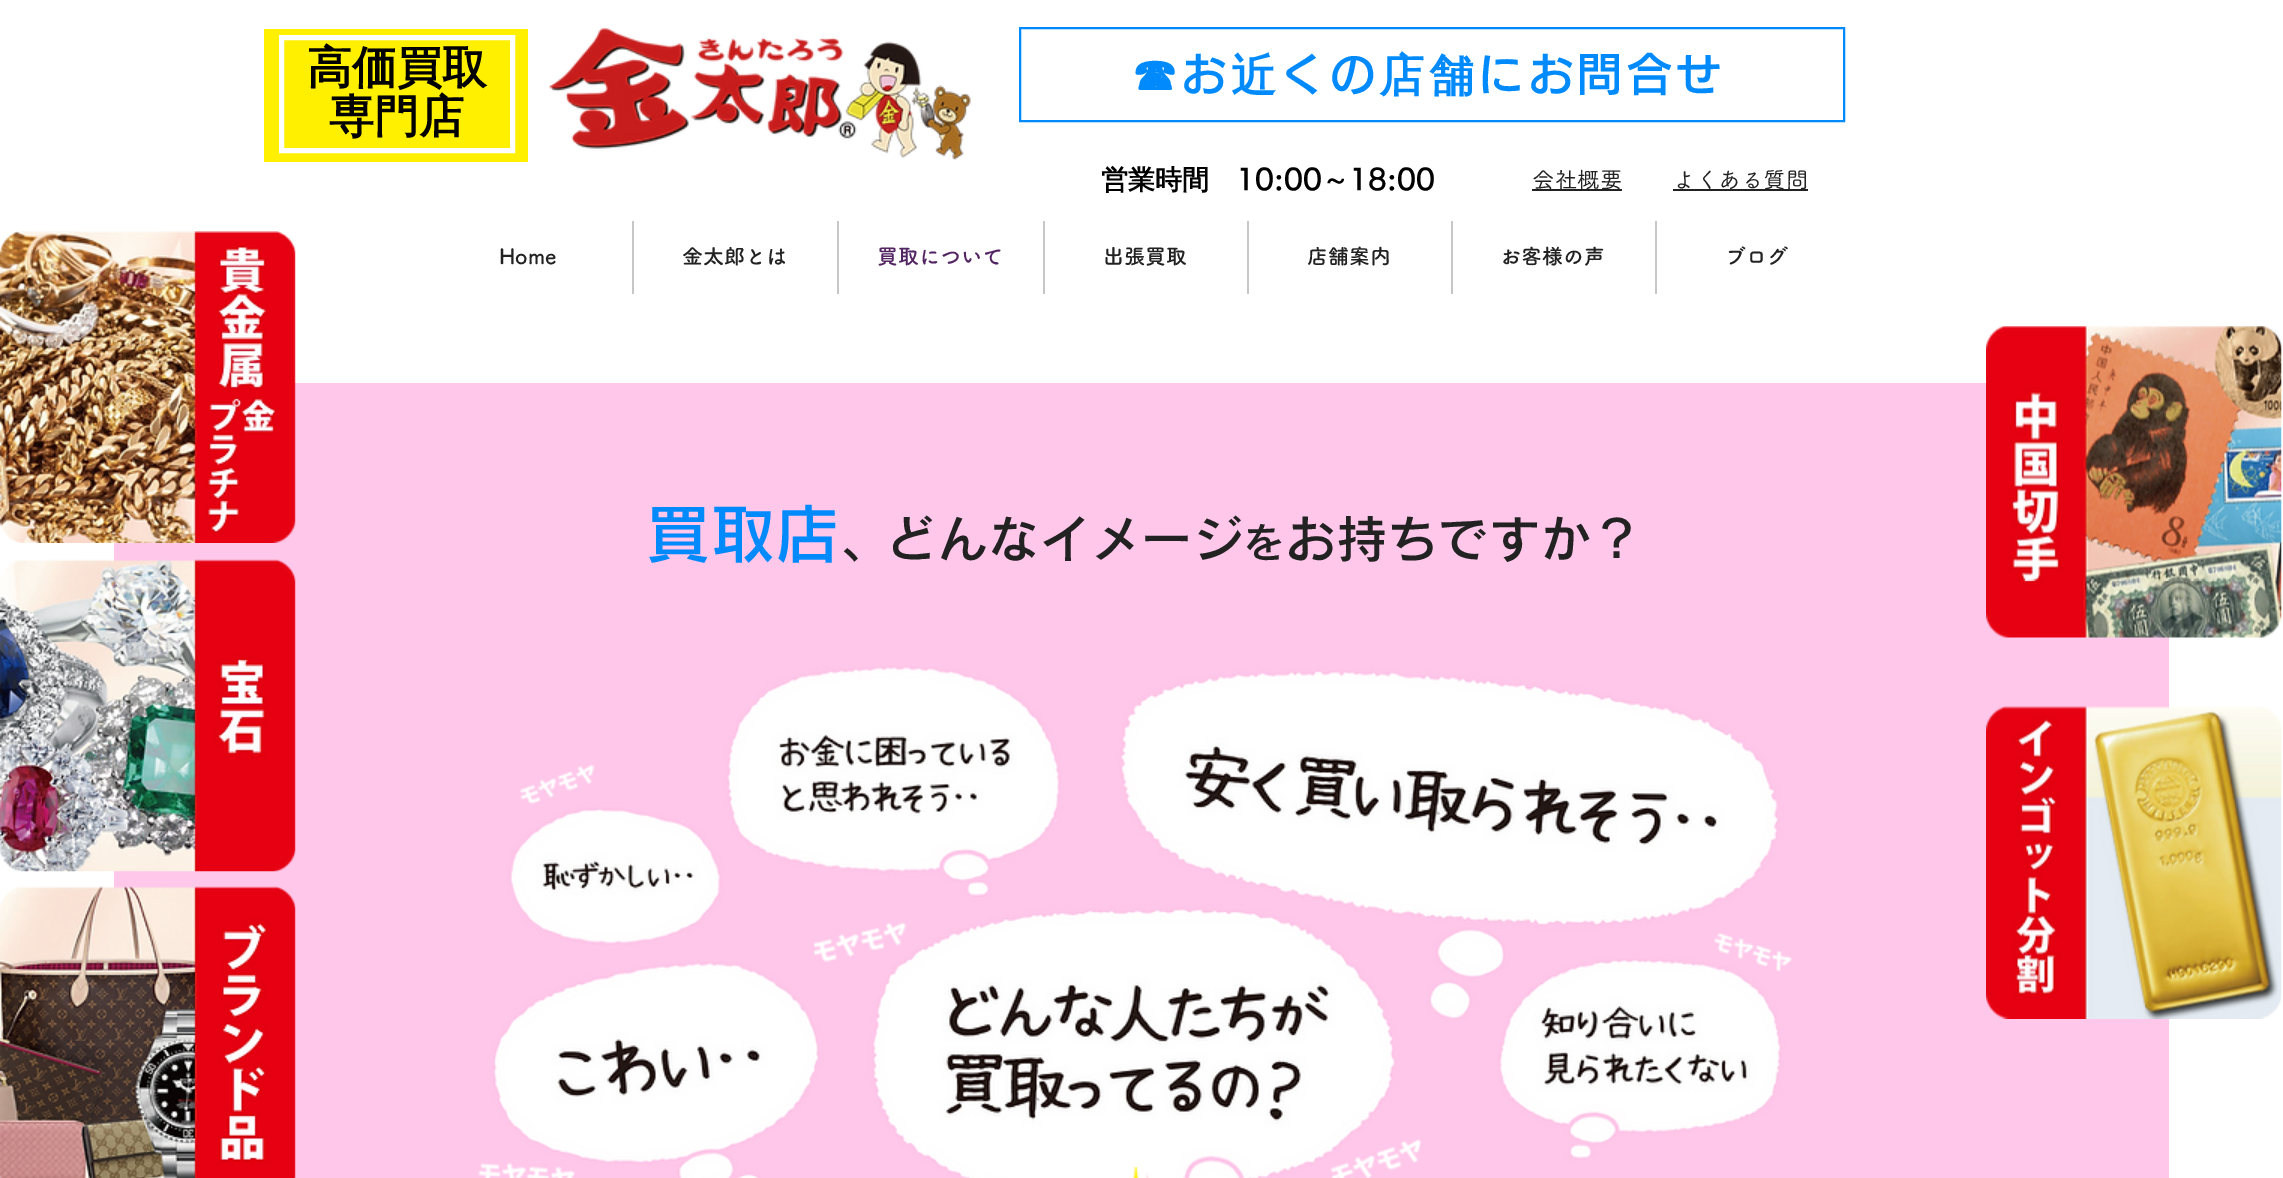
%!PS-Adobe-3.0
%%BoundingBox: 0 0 2283 1178
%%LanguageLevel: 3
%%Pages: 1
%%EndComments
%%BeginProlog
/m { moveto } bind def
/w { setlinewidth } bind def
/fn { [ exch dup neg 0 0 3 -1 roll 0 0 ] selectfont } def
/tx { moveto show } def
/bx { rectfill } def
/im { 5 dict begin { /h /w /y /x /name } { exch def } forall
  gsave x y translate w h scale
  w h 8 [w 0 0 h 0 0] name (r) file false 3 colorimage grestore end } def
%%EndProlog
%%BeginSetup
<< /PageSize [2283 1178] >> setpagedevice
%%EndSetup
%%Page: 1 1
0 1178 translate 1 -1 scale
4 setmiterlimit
1 setgray
0 0 2283 1178 bx
1 0.941 0 setrgbcolor
264 29 264 133 bx
(image0.raw) 548 27 423 133 im
1 setgray
5 w
281.5 37.5 231 113 rectstroke
/WenQuanYiZenHei-Bold 45 fn
0 setgray
(高価買取) 307 83 tx
(専門店) 329 132 tx
0 0.541 0.988 setrgbcolor
2 w
1020 28 824 93 rectstroke
1132 91 m 4.5 0 (☎) ashow
/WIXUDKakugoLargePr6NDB-SemiBold 45 fn
1181 91 m 4.5 0 (お) ashow
/WenQuanYiZenHei-Bold 45 fn
1231 91 m 4.5 0 (近) ashow
/WIXUDKakugoLargePr6NDB-SemiBold 45 fn
1280 91 m 4.5 0 (くの) ashow
/WenQuanYiZenHei-Bold 45 fn
1379 91 m 4.5 0 (店舗) ashow
/WIXUDKakugoLargePr6NDB-SemiBold 45 fn
1478 91 m 4.5 0 (にお問合せ) ashow
/WenQuanYiZenHei-Bold 27 fn
0 setgray
(営業時間) 1101 189 tx
/WIXUDKakugoLargePr6NDB-SemiBold 27 fn
(10:00) 1236 189 tx
/WenQuanYiZenHei-Bold 27 fn
(～) 1322 189 tx
/WIXUDKakugoLargePr6NDB-SemiBold 27 fn
(18:00) 1349 189 tx
0.133 setgray
1532 189 90 2 bx
/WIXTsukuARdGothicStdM-Medium 22.5 fn
(会社概要) 1532 188 tx
1673 189 135 2 bx
(よくある質問) 1673 188 tx
1 0.78 0.918 setrgbcolor
114 383 2055 795 bx
(image1.raw) 0 231 296 312 im
(image2.raw) 0 559 296 313 im
(image3.raw) 0 886 296 292 im
/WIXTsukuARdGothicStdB-Bold 21 fn
0.133 setgray
(Home) 499 264 tx
0.78 setgray
632 221 2 73 bx
0.133 setgray
(金太郎とは) 682 264 tx
0.78 setgray
837 221 2 73 bx
0.325 0.145 0.388 setrgbcolor
(買取について) 877 264 tx
0.78 setgray
1043 221 2 73 bx
0.133 setgray
(出張買取) 1103 264 tx
0.78 setgray
1247 221 2 73 bx
0.133 setgray
(店舗案内) 1307 264 tx
0.78 setgray
1451 221 2 73 bx
0.133 setgray
(お客様の声) 1500 264 tx
0.78 setgray
1655 221 2 73 bx
0.133 setgray
(ブログ) 1725 264 tx
/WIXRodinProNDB-SemiBold 64.5 fn
0 0.541 0.988 setrgbcolor
(買取店) 646 558 tx
/WIXRodinProNDB-SemiBold 51 fn
0.133 setgray
840 558 m -5 0 (、) ashow
(どんなイメージ) 886 558 tx
/WIXRodinProNDB-SemiBold 42 fn
(を) 1243 558 tx
/WIXRodinProNDB-SemiBold 51 fn
(お持ちですか) 1285 558 tx
1591 558 m -5 0 (？) ashow
(image4.raw) 478 666 1314 512 im
(image5.raw) 1132 1167 17 11 im
(image6.raw) 1986 326 296 312 im
(image7.raw) 1986 706 296 313 im
showpage
%%EOF
